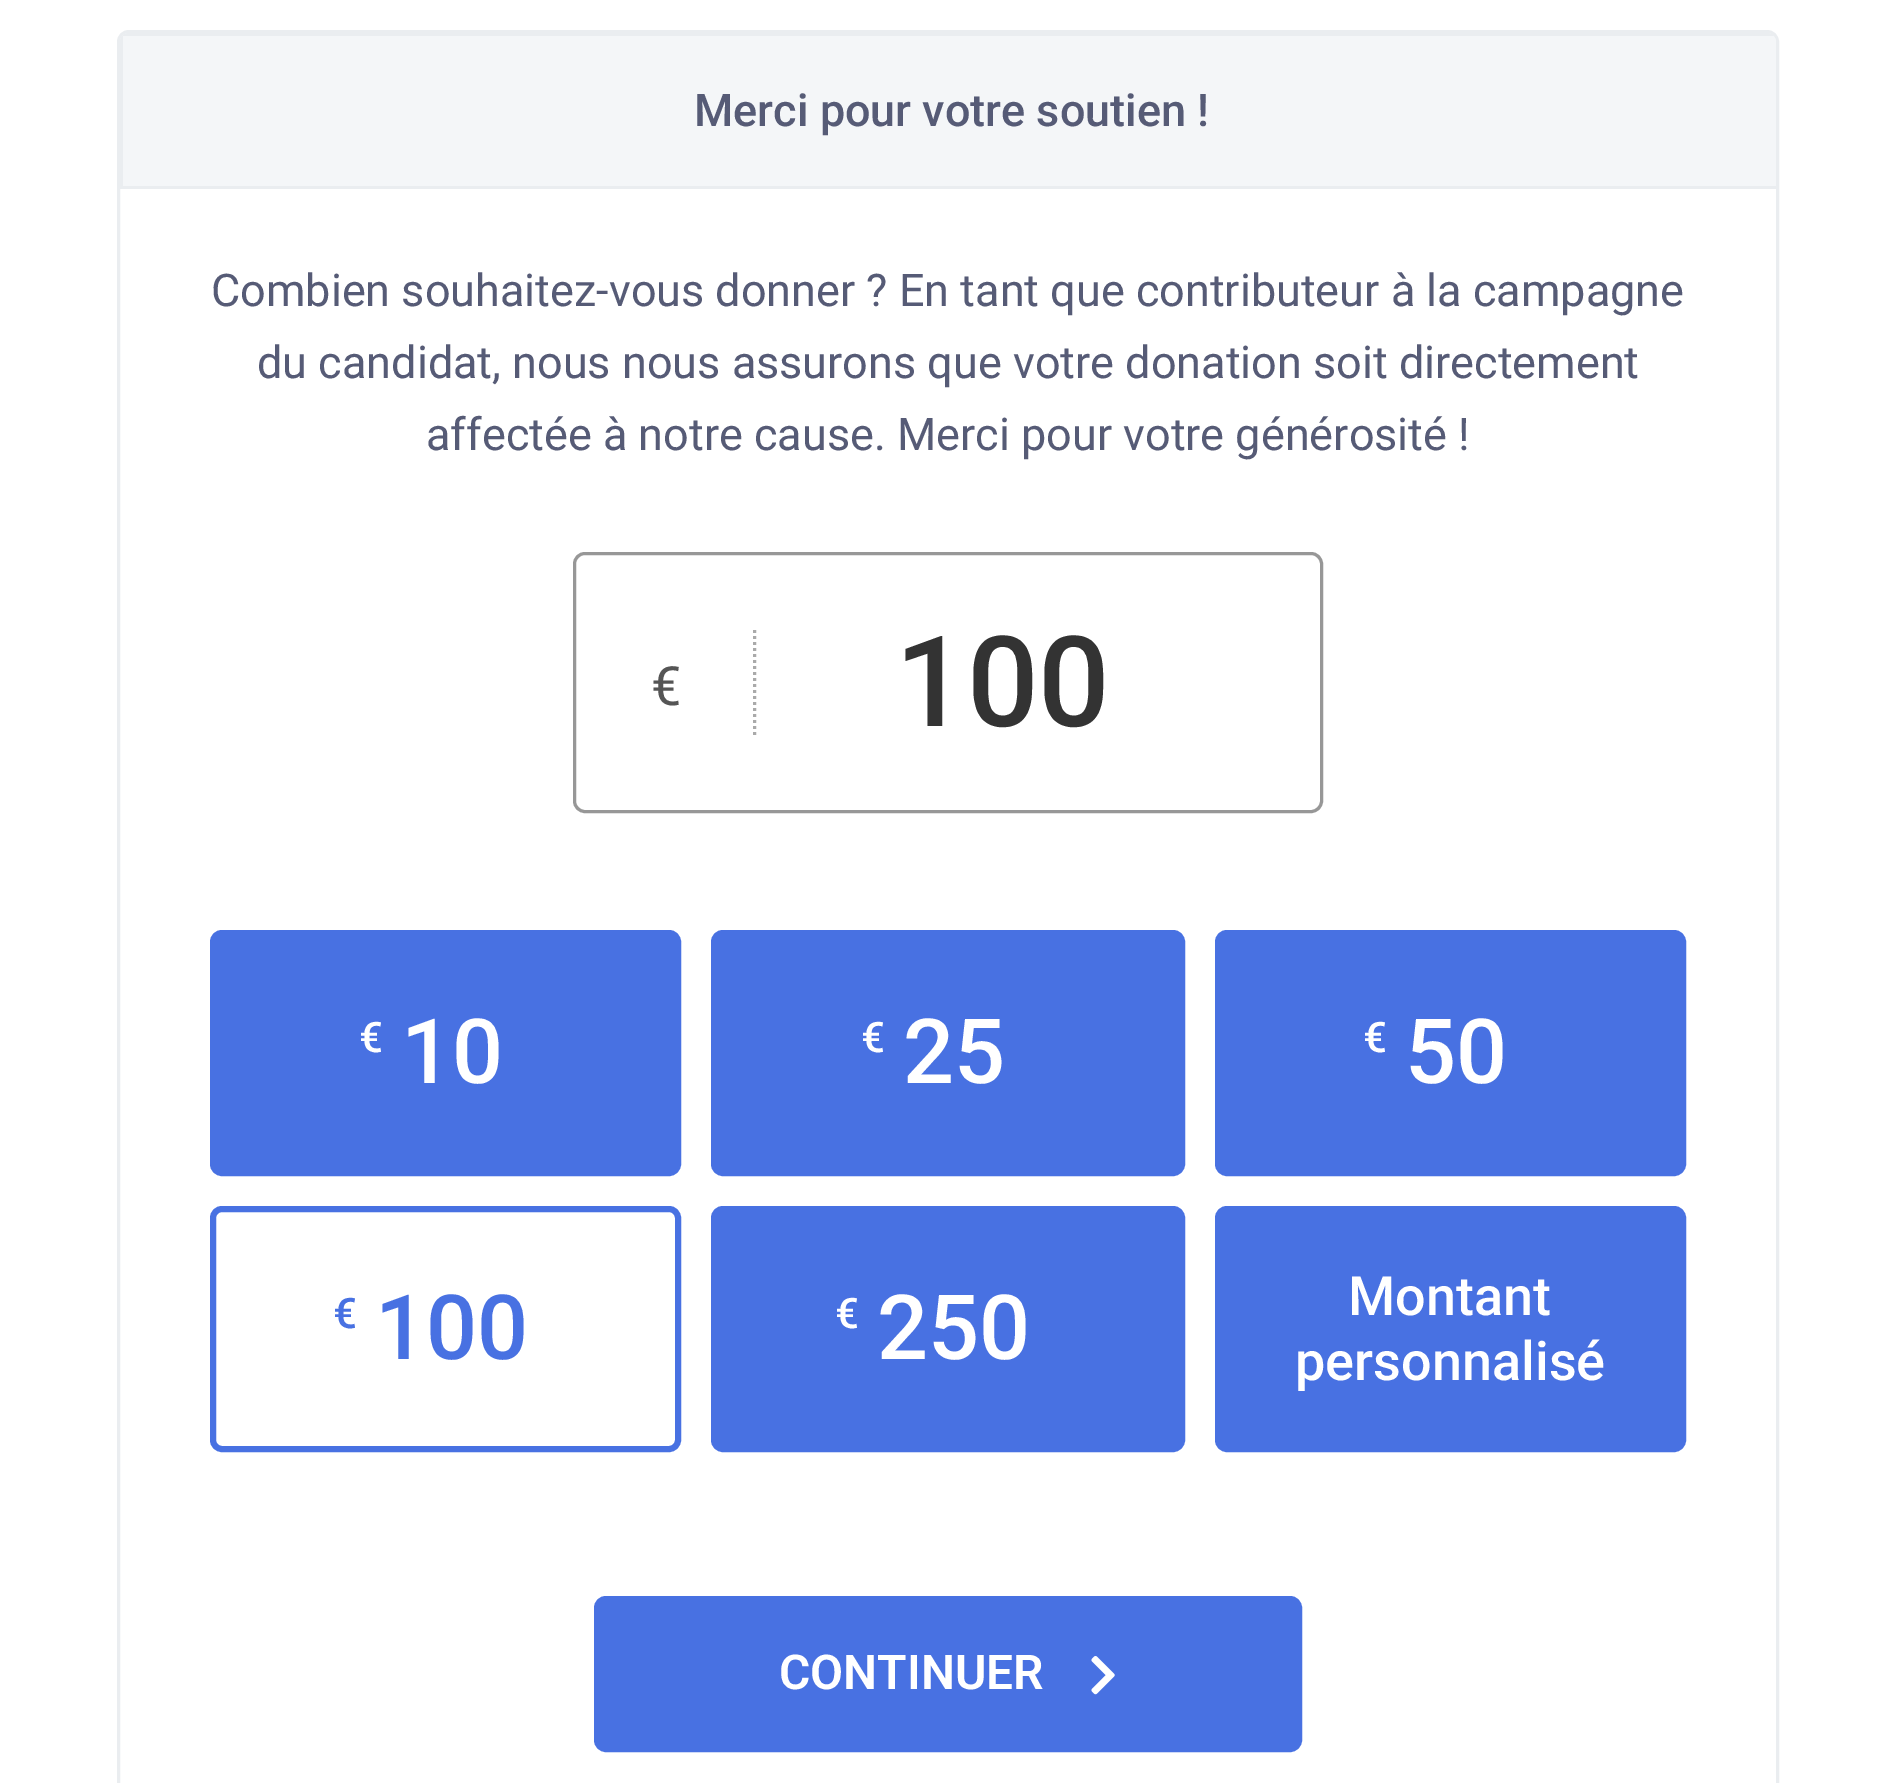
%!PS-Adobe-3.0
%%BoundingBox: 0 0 1895 1783
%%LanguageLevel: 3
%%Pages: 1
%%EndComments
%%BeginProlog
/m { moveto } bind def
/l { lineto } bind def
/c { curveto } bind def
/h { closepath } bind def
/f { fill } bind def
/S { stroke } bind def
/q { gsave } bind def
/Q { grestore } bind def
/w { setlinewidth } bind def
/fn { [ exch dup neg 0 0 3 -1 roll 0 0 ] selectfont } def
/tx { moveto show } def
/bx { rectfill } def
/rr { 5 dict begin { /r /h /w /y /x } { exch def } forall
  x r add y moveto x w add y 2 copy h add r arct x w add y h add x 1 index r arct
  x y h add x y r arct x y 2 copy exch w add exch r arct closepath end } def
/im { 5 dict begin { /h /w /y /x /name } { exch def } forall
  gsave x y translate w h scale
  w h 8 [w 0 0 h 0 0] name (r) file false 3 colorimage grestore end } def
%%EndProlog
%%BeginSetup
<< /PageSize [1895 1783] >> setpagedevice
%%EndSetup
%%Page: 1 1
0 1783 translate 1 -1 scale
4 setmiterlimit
1 setgray
0 0 1895 1783 bx
0.918 0.929 0.941 setrgbcolor
3 w
118.5 31.5 1659 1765 10.5 rr S
0.957 0.965 0.973 setrgbcolor
129 33 m 1767 33 l 1772 33 1776 37 1776 42 c 1776 189 l 120 189 l 120 42 l 120 37 124 33 129 33 c h f
0.918 0.929 0.941 setrgbcolor
123 36 m 1774 36 l 1772 34 1770 33 1767 33 c 129 33 l 124 33 120 37 120 42 c 120 189 l 1776 189 l 1776 186 l 123 186 l h f
/Roboto-Medium 45 fn
0.337 0.357 0.463 setrgbcolor
(Merci pour votre soutien !) 694 126 tx
/Roboto-Regular 45 fn
(Combien souhaitez-vous donner ? En tant que contributeur à la campagne) 211 306 tx
(du candidat, nous nous assurons que votre donation soit directement) 257 378 tx
(affectée à notre cause. Merci pour votre générosité !) 426 450 tx
0.592 setgray
574.5 553.5 747 258 10.5 rr S
0.667 setgray
[3 3] 0 setdash
754.5 630 m 754.5 735 l S
/Roboto-Regular 54 fn
0.333 setgray
(€) 651 705 tx
/Roboto-Medium 126 fn
0.2 setgray
(100) 895 726 tx
0.282 0.443 0.886 setrgbcolor
213 933 465 240 9 rr q f Q
6 w
[] 0 setdash
S
/Roboto-Medium 42 fn
1 setgray
(€) 359 1052 tx
/Roboto-Medium 90 fn
(10) 401 1083 tx
0.282 0.443 0.886 setrgbcolor
714 933 468 240 9 rr q f Q
S
/Roboto-Medium 42 fn
1 setgray
(€) 861 1052 tx
/Roboto-Medium 90 fn
(25) 903 1083 tx
0.282 0.443 0.886 setrgbcolor
1218 933 465 240 9 rr q f Q
S
/Roboto-Medium 42 fn
1 setgray
(€) 1363 1052 tx
/Roboto-Medium 90 fn
(50) 1405 1083 tx
0.282 0.443 0.886 setrgbcolor
213 1209 465 240 9 rr S
/Roboto-Medium 42 fn
(€) 333 1328 tx
/Roboto-Medium 90 fn
(100) 375 1359 tx
714 1209 468 240 9 rr q f Q
S
/Roboto-Medium 42 fn
1 setgray
(€) 835 1328 tx
/Roboto-Medium 90 fn
(250) 877 1359 tx
0.282 0.443 0.886 setrgbcolor
1218 1209 465 240 9 rr q f Q
S
/Roboto-Medium 54 fn
1 setgray
(Montant) 1348 1315 tx
(personnalisé) 1295 1380 tx
0.282 0.443 0.886 setrgbcolor
597 1599 702 150 9 rr q f Q
S
/Roboto-SemiBold 48 fn
1 setgray
(CONTINUER) 779 1689 tx
(image0.raw) 1091 1656 24 39 im
showpage
%%EOF
